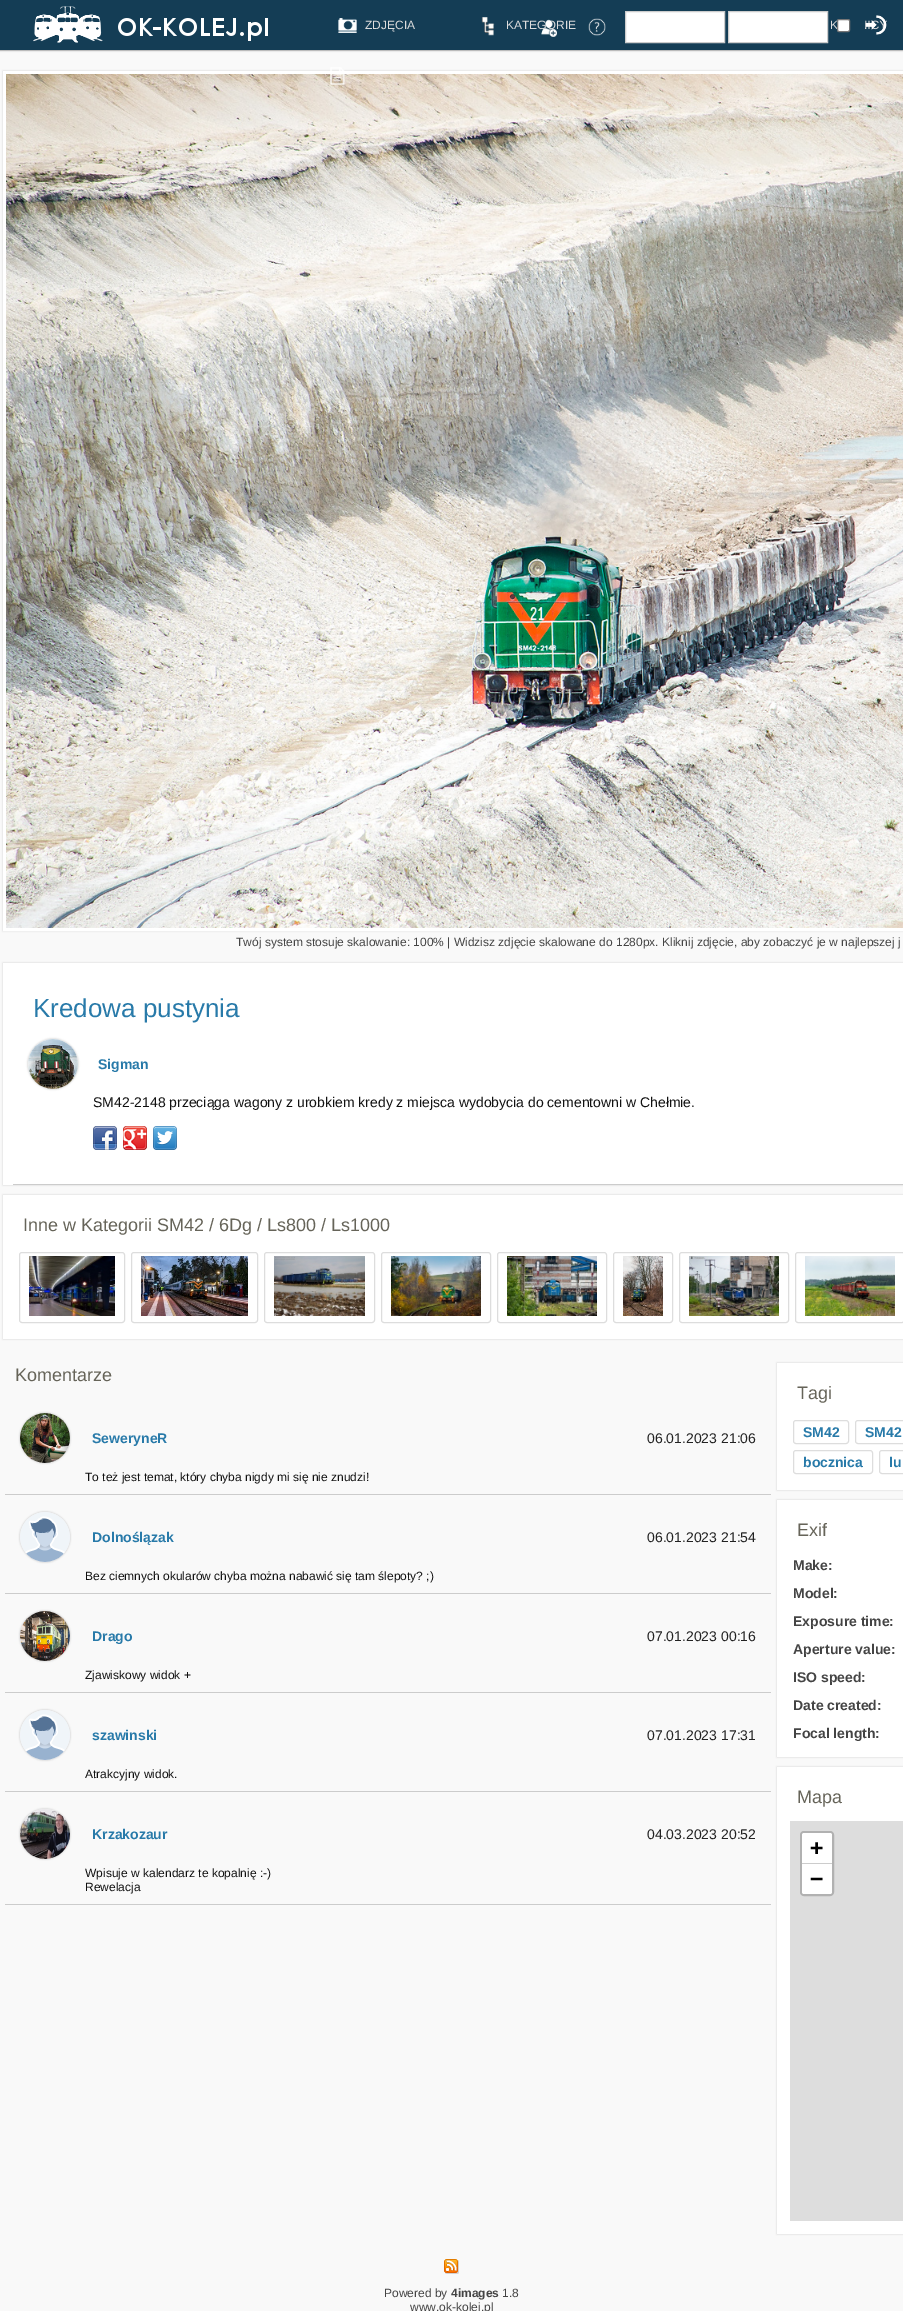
%!PS-Adobe-3.0
%%BoundingBox: 0 0 903 2311
%%LanguageLevel: 3
%%Pages: 1
%%EndComments
%%BeginProlog
/m { moveto } bind def
/l { lineto } bind def
/c { curveto } bind def
/h { closepath } bind def
/f { fill } bind def
/S { stroke } bind def
/q { gsave } bind def
/Q { grestore } bind def
/w { setlinewidth } bind def
/fn { [ exch dup neg 0 0 3 -1 roll 0 0 ] selectfont } def
/tx { moveto show } def
/bx { rectfill } def
/al { dup .setfillconstantalpha .setstrokeconstantalpha } def
/rr { 5 dict begin { /r /h /w /y /x } { exch def } forall
  x r add y moveto x w add y 2 copy h add r arct x w add y h add x 1 index r arct
  x y h add x y r arct x y 2 copy exch w add exch r arct closepath end } def
/sh { 12 dict begin { /a /b /q /h /w /y /x } { exch def } forall gsave /was 0 def
  9 -2 -9 { dup b mul 4 div /e exch def 1 sub .425 mul 2.718 exch exp 1 add a .99 .min exch div /now exch def
    1 1 now sub 1 was sub div sub al /was now def
    w h .min e 2 mul add 0 gt { x e sub y e sub w e 2 mul add h e 2 mul add
      q e add b .6 mul add w h .min 2 div e add .min 0 .max rr fill } if } for grestore end } def
/im { 5 dict begin { /h /w /y /x /name } { exch def } forall
  gsave x y translate w h scale
  w h 8 [w 0 0 h 0 0] name (r) file false 3 colorimage grestore end } def
%%EndProlog
%%BeginSetup
<< /PageSize [903 2311] /PageUsesTransparency true >> setpagedevice
%%EndSetup
%%Page: 1 1
0 .pushpdf14devicefilter
0 2311 translate 1 -1 scale
4 setmiterlimit
0.976 setgray
0 0 903 2311 bx
0.2 setgray
0 0 903 50 0 1 1 sh
0.078 0.239 0.333 setrgbcolor
0 0 903 50 bx
(image0.raw) 33 6 235 37 im
/LiberationSans-Regular 12 fn
0.867 setgray
(KATEGORIE) 506 29 tx
(image1.raw) 541 19 16 18 im
(image2.raw) 588 18 18 18 im
1 setgray
625.5 11.5 m 724.5 11.5 l 724.5 42.5 l 625.5 42.5 l h q f Q
0.8 setgray
S
1 setgray
728.5 11.5 m 827.5 11.5 l 827.5 42.5 l 728.5 42.5 l h q f Q
0.8 setgray
S
0.867 setgray
(K) 830 29 tx
1 setgray
837.5 19.5 12 12 1.5 rr q f Q
0.463 setgray
S
(image3.raw) 865 15 22 20 im
(image4.raw) 338 18 19 15 im
0.867 setgray
(ZDJĘCIA) 365 29 tx
(image5.raw) 481 17 14 19 im
0.8 setgray
3 71 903 860 0 1 1 sh
1 setgray
3 w
4.5 72.5 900 857 rectstroke
(image7.raw) 6 74 897 854 im
(image6.raw) 330 67 15 18 im
0.267 setgray
(Twój system stosuje skalowanie: 100% | Widzisz zdjęcie skalowane do 1280px. Kliknij zdjęcie, aby zobaczyć je w najlepszej j) 236 946 tx
0.8 setgray
3 963 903 222 0 1 1 sh
1 setgray
3 963 900 222 bx
/LiberationSans-Regular 26 fn
0.157 0.478 0.663 setrgbcolor
(Kredowa pustynia) 33 1017 tx
0.733 setgray
28 1039 50 50 25 1 1 sh
(image8.raw) 28 1039 50 50 im
/LiberationSans-Bold 14 fn
0.157 0.478 0.663 setrgbcolor
(Sigman) 98 1069 tx
0.8 setgray
13 1184 890 1 bx
/LiberationSans-Regular 14 fn
0.067 setgray
(SM42-2148 przeciąga wagony z urobkiem kredy z miejsca wydobycia do cementowni w Chełmie.) 93 1107 tx
(image9.raw) 93 1126 24 24 im
(image10.raw) 123 1126 24 24 im
(image11.raw) 153 1126 24 24 im
0.8 setgray
3 1195 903 144 0 1 1 sh
1 setgray
3 1195 900 144 bx
/LiberationSans-Regular 18 fn
0.4 0.392 0.349 setrgbcolor
(Inne w Kategorii SM42 / 6Dg / Ls800 / Ls1000) 23 1231 tx
0.867 setgray
1 w
19.5 1252.5 105 70 2.5 rr S
(image12.raw) 29 1256 86 60 im
131.5 1252.5 126 70 2.5 rr S
(image13.raw) 141 1256 107 60 im
264.5 1252.5 110 70 2.5 rr S
(image14.raw) 274 1256 91 60 im
381.5 1252.5 109 70 2.5 rr S
(image15.raw) 391 1256 90 60 im
497.5 1252.5 109 70 2.5 rr S
(image16.raw) 507 1256 90 60 im
613.5 1252.5 59 70 2.5 rr S
(image17.raw) 623 1256 40 60 im
679.5 1252.5 109 70 2.5 rr S
(image18.raw) 689 1256 90 60 im
795.5 1252.5 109 70 2.5 rr S
(image19.raw) 805 1256 90 60 im
0.4 0.392 0.349 setrgbcolor
(Komentarze) 15 1381 tx
0.733 setgray
20 1413 50 50 25 1 1 sh
(image20.raw) 20 1413 50 50 im
/LiberationSans-Bold 14 fn
0.157 0.478 0.663 setrgbcolor
(SeweryneR) 92 1443 tx
/LiberationSans-Regular 14 fn
0.133 setgray
(06.01.2023 21:06) 647 1443 tx
0.8 setgray
5 1494 766 1 bx
/LiberationSans-Regular 12 fn
0.067 setgray
(To też jest temat, który chyba nigdy mi się nie znudzi!) 85 1481 tx
0.733 setgray
20 1512 50 50 25 1 1 sh
(image21.raw) 20 1512 50 50 im
/LiberationSans-Bold 14 fn
0.157 0.478 0.663 setrgbcolor
(Dolnoślązak) 92 1542 tx
/LiberationSans-Regular 14 fn
0.133 setgray
(06.01.2023 21:54) 647 1542 tx
0.8 setgray
5 1593 766 1 bx
/LiberationSans-Regular 12 fn
0.067 setgray
(Bez ciemnych okularów chyba można nabawić się tam ślepoty? ;\)) 85 1580 tx
0.733 setgray
20 1611 50 50 25 1 1 sh
(image22.raw) 20 1611 50 50 im
/LiberationSans-Bold 14 fn
0.157 0.478 0.663 setrgbcolor
(Drago) 92 1641 tx
/LiberationSans-Regular 14 fn
0.133 setgray
(07.01.2023 00:16) 647 1641 tx
0.8 setgray
5 1692 766 1 bx
/LiberationSans-Regular 12 fn
0.067 setgray
(Zjawiskowy widok +) 85 1679 tx
0.733 setgray
20 1710 50 50 25 1 1 sh
(image23.raw) 20 1710 50 50 im
/LiberationSans-Bold 14 fn
0.157 0.478 0.663 setrgbcolor
(szawinski) 92 1740 tx
/LiberationSans-Regular 14 fn
0.133 setgray
(07.01.2023 17:31) 647 1740 tx
0.8 setgray
5 1791 766 1 bx
/LiberationSans-Regular 12 fn
0.067 setgray
(Atrakcyjny widok.) 85 1778 tx
0.733 setgray
20 1809 50 50 25 1 1 sh
(image24.raw) 20 1809 50 50 im
/LiberationSans-Bold 14 fn
0.157 0.478 0.663 setrgbcolor
(Krzakozaur) 92 1839 tx
/LiberationSans-Regular 14 fn
0.133 setgray
(04.03.2023 20:52) 647 1839 tx
0.8 setgray
5 1904 766 1 bx
/LiberationSans-Regular 12 fn
0.067 setgray
(Wpisuje w kalendarz te kopalnię :-\)) 85 1877 tx
(Rewelacja) 85 1891 tx
0.8 setgray
777 1363 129 127 0 1 1 sh
1 setgray
777 1363 126 127 bx
/LiberationSans-Regular 18 fn
0.4 0.392 0.349 setrgbcolor
(Tagi) 797 1399 tx
0.867 setgray
793.5 1420.5 55 23 2.5 rr S
/LiberationSans-Bold 14 fn
0.157 0.478 0.663 setrgbcolor
(SM42) 803 1437 tx
0.867 setgray
855.5 1420.5 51 23 2.5 rr S
0.157 0.478 0.663 setrgbcolor
(SM42) 865 1437 tx
0.867 setgray
793.5 1450.5 79 23 2.5 rr S
0.157 0.478 0.663 setrgbcolor
(bocznica) 803 1467 tx
0.867 setgray
879.5 1450.5 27 23 2.5 rr S
0.157 0.478 0.663 setrgbcolor
(lu) 889 1467 tx
0.8 setgray
777 1500 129 257 0 1 1 sh
1 setgray
777 1500 126 257 bx
/LiberationSans-Regular 18 fn
0.4 0.392 0.349 setrgbcolor
(Exif) 797 1536 tx
/LiberationSans-Bold 14 fn
0.267 setgray
(Make:) 793 1570 tx
(Model:) 793 1598 tx
(Exposure time:) 793 1626 tx
(Aperture value:) 793 1654 tx
(ISO speed:) 793 1682 tx
(Date created:) 793 1710 tx
(Focal length:) 793 1738 tx
0.8 setgray
777 1767 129 467 0 1 1 sh
1 setgray
777 1767 126 467 bx
/LiberationSans-Regular 18 fn
0.4 0.392 0.349 setrgbcolor
(Mapa) 797 1803 tx
0.867 setgray
790 1821 113 400 bx
0.694 setgray
2 w
801 1832 32 63 3 rr S
1 setgray
804 1833 m 830 1833 l 831 1833 832 1834 832 1835 c 832 1864 l 802 1864 l 802 1835 l 802 1834 803 1833 804 1833 c h f
0.8 setgray
802 1863 30 1 bx
/DejaVuSansMono-Bold 22 fn
0 setgray
(+) 810 1855 tx
1 setgray
802 1864 m 832 1864 l 832 1892 l 832 1893 831 1894 830 1894 c 804 1894 l 803 1894 802 1893 802 1892 c h f
0 setgray
(−) 810 1886 tx
(image25.raw) 444 2259 15 15 im
/LiberationSans-Regular 12 fn
0.267 setgray
(Powered by) 384 2297 tx
/LiberationSans-Bold 12 fn
(4images) 451 2297 tx
/LiberationSans-Regular 12 fn
(1.8) 502 2297 tx
(www.ok-kolej.pl) 410 2311 tx
.poppdf14devicefilter showpage
%%EOF
